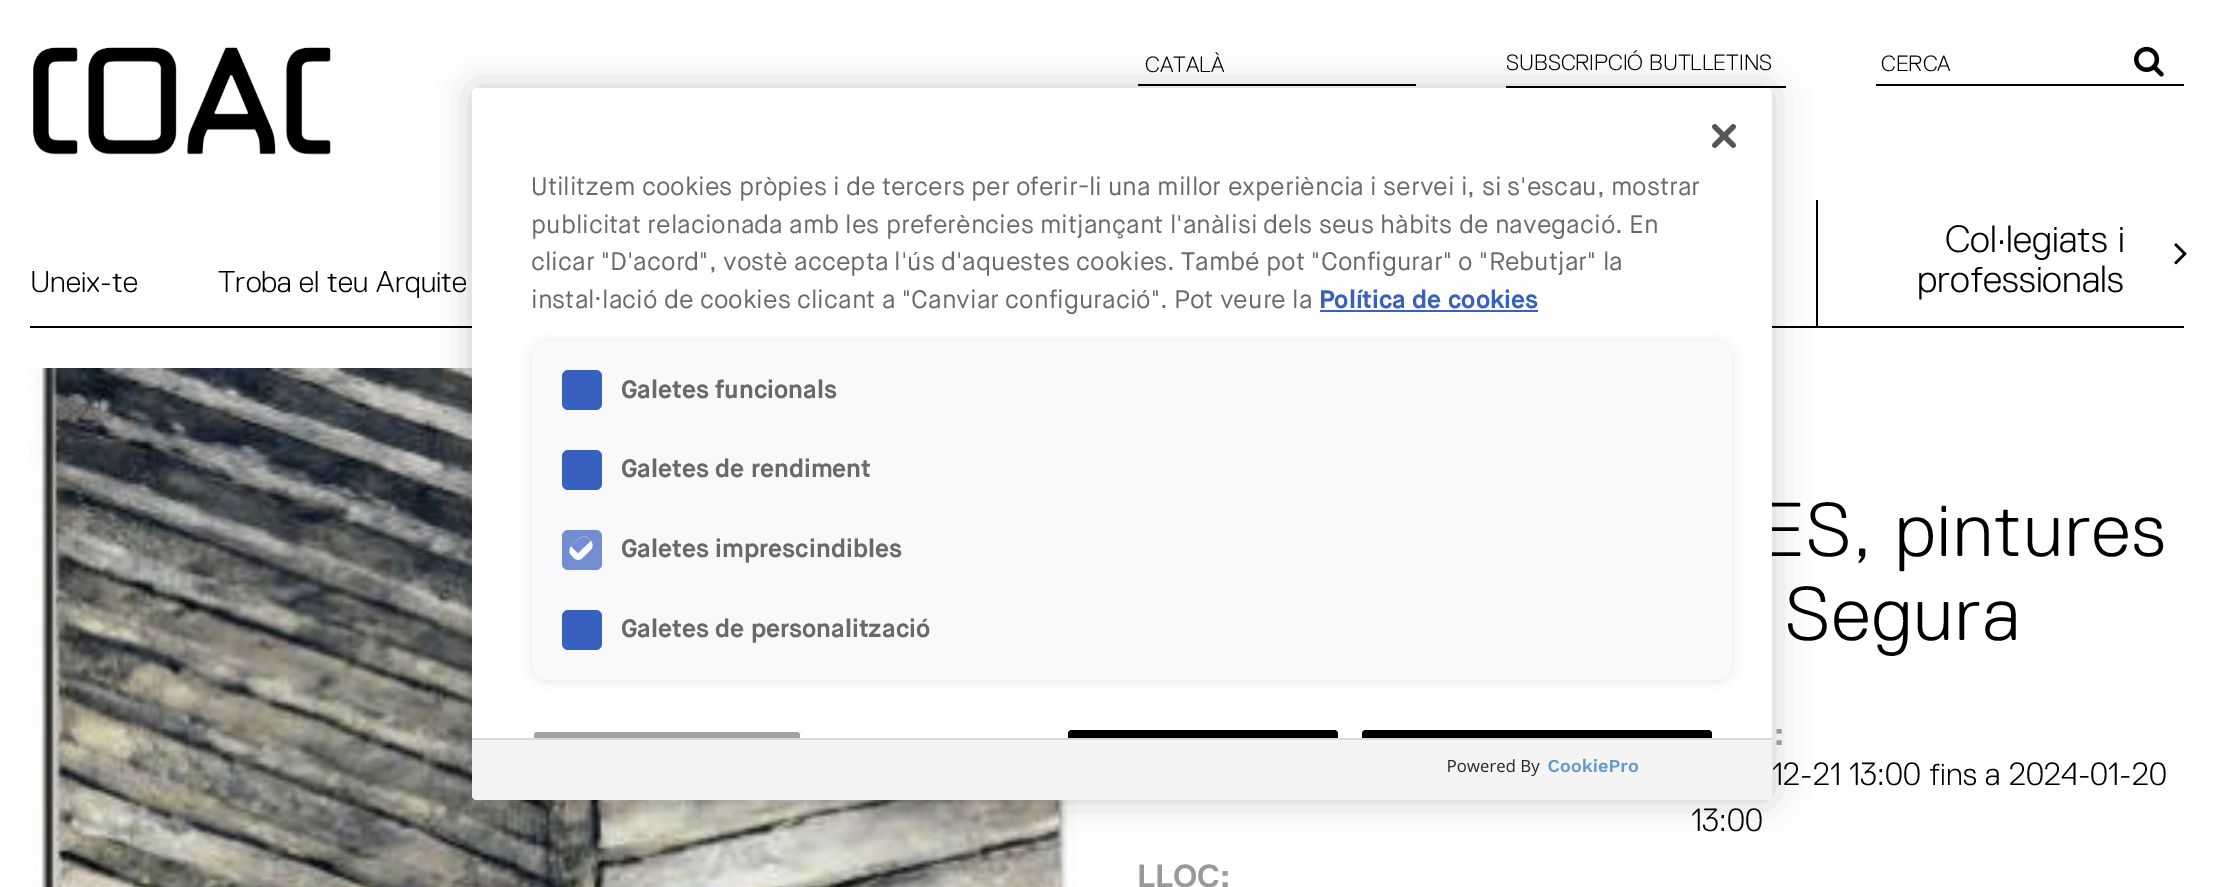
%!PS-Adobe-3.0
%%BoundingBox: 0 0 2213 887
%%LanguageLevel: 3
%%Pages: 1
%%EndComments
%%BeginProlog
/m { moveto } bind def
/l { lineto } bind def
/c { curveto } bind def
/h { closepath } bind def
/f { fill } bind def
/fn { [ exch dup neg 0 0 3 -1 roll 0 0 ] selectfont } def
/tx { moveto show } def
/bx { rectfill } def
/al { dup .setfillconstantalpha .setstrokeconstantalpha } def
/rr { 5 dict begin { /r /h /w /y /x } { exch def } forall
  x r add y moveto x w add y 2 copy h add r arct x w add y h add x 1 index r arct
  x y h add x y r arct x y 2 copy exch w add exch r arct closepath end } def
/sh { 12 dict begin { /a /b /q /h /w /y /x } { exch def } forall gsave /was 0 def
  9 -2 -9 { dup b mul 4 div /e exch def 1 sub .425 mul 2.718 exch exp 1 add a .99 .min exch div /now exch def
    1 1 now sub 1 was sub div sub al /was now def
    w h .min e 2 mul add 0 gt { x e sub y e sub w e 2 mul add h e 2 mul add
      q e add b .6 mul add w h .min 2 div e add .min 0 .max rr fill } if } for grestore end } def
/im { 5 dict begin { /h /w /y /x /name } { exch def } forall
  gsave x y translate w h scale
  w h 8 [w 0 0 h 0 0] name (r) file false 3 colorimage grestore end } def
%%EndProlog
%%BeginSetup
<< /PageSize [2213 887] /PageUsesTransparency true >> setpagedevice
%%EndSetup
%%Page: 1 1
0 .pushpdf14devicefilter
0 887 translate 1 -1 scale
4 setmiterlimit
1 setgray
0 0 2213 887 bx
(image0.raw) 33 47 298 108 im
0 setgray
1138 84 278 2 bx
/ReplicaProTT-Light 22 fn
(CATALÀ) 1145 72 tx
1506 86 280 2 bx
(SUBSCRIPCIÓ BUTLLETINS) 1506 70 tx
1876 84 308 2 bx
(CERCA) 1881 71 tx
(image1.raw) 2134 46 30 31 im
30 326 2154 2 bx
1816 200 2 126 bx
(image5.raw) 30 368 1046 519 im
472 88 1300 712 5 18 0.2 sh
/ReplicaProTT-Light 76 fn
1760 556 m 2 0 (ES, pintures) ashow
1 setgray
472 88 1300 712 5 rr f
(image2.raw) 1712 124 24 24 im
/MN-Regular 25.2 fn
0.412 setgray
(Utilitzem cookies pròpies i de tercers per oferir-li una millor experiència i servei i, si s'escau, mostrar) 531 195 tx
(publicitat relacionada amb les preferències mitjançant l'anàlisi dels seus hàbits de navegació. En) 531 233 tx
(clicar "D'acord", vostè accepta l'ús d'aquestes cookies. També pot "Configurar" o "Rebutjar" la) 531 270 tx
(instal·lació de cookies clicant a "Canviar configuració". Pot veure la) 531 308 tx
/MN-Bold 25.2 fn
0.22 0.376 0.745 setrgbcolor
(Política de cookies) 1319 308 tx
1320 310 218 2 bx
0 setgray
532 342 1200 340 16 6 0.1 sh
0.976 0.976 0.988 setrgbcolor
532 340 1200 340 16 rr f
0.22 0.376 0.745 setrgbcolor
568 370 m 596 370 l 599 370 602 373 602 376 c 602 404 l 602 407 599 410 596 410 c 568 410 l 565 410 562 407 562 404 c 562 376 l 562 373 565 370 568 370 c h f
0.412 setgray
(Galetes funcionals) 621 398 tx
0.22 0.376 0.745 setrgbcolor
568 450 m 596 450 l 599 450 602 453 602 456 c 602 484 l 602 487 599 490 596 490 c 568 490 l 565 490 562 487 562 484 c 562 456 l 562 453 565 450 568 450 c h f
0.412 setgray
(Galetes de rendiment) 621 477 tx
0.447 0.557 0.82 setrgbcolor
568 530 m 596 530 l 599 530 602 533 602 536 c 602 564 l 602 567 599 570 596 570 c 568 570 l 565 570 562 567 562 564 c 562 536 l 562 533 565 530 568 530 c h f
0.992 0.992 0.996 setrgbcolor
571 546.5 m 579.5 538 l 582 536 585.5 536 588 538 c 591 541 l 593 543.5 593 547 591 549.5 c 582.5 558 l 580 560.5 576.5 560.5 574 558 c 571 555 l 569 553 569 549 571 546.5 c h 571 546.5 m 579.5 538 l 582 536 585.5 536 588 538 c 591 541 l 578 553.5 l h eofill
0.412 setgray
(Galetes imprescindibles) 621 557 tx
0.22 0.376 0.745 setrgbcolor
568 610 m 596 610 l 599 610 602 613 602 616 c 602 644 l 602 647 599 650 596 650 c 568 650 l 565 650 562 647 562 644 c 562 616 l 562 613 565 610 568 610 c h f
0.412 setgray
(Galetes de personalització) 621 637 tx
0.639 setgray
536 730 m 798 730 l 800 730 802 732 802 734 c 802 800 l 532 800 l 532 734 l 532 732 534 730 536 730 c h f
1 setgray
536 730 m 534 730 532 732 532 734 c 532 800 l 534 800 l 534 734 l 534 733 535 732 536 732 c 798 732 l 799 732 800 733 800 734 c 800 800 l 802 800 l 802 734 l 802 732 800 730 798 730 c h f
0 setgray
1072 730 m 1334 730 l 1336 730 1338 732 1338 734 c 1338 800 l 1068 800 l 1068 734 l 1068 732 1070 730 1072 730 c h f
1072 730 m 1070 730 1068 732 1068 734 c 1068 800 l 1070 800 l 1070 734 l 1070 733 1071 732 1072 732 c 1334 732 l 1335 732 1336 733 1336 734 c 1336 800 l 1338 800 l 1338 734 l 1338 732 1336 730 1334 730 c h f
1366 730 m 1708 730 l 1710 730 1712 732 1712 734 c 1712 800 l 1362 800 l 1362 734 l 1362 732 1364 730 1366 730 c h f
1366 730 m 1364 730 1362 732 1362 734 c 1362 800 l 1364 800 l 1364 734 l 1364 733 1365 732 1366 732 c 1708 732 l 1709 732 1710 733 1710 734 c 1710 800 l 1712 800 l 1712 734 l 1712 732 1710 730 1708 730 c h f
0.957 setgray
472 738 m 1772 738 l 1772 795 l 1772 798 1770 800 1767 800 c 477 800 l 474 800 472 798 472 795 c h f
0.847 setgray
472 738 1300 2 bx
(image3.raw) 1448 758 191 18 im
/ReplicaProTT-Light 30 fn
0 setgray
(Uneix-te) 30 292 tx
(Troba el teu Arquite) 218 292 tx
/ReplicaProTT-Light 38 fn
(Col·legiats i) 1945 252 tx
(professionals) 1917 292 tx
(image4.raw) 2174 243 13 22 im
/ReplicaProTT-Light 76 fn
1785 640 m 2 0 (Segura) ashow
/ReplicaProTT-Bold 32 fn
0.6 setgray
(:) 1774 745 tx
/ReplicaProTT-Light 32 fn
0 setgray
(12-21 13:00 fins a 2024-01-20) 1772 785 tx
(13:00) 1691 831 tx
/ReplicaProTT-Bold 32 fn
0.6 setgray
(LLOC:) 1137 887 tx
.poppdf14devicefilter showpage
%%EOF
